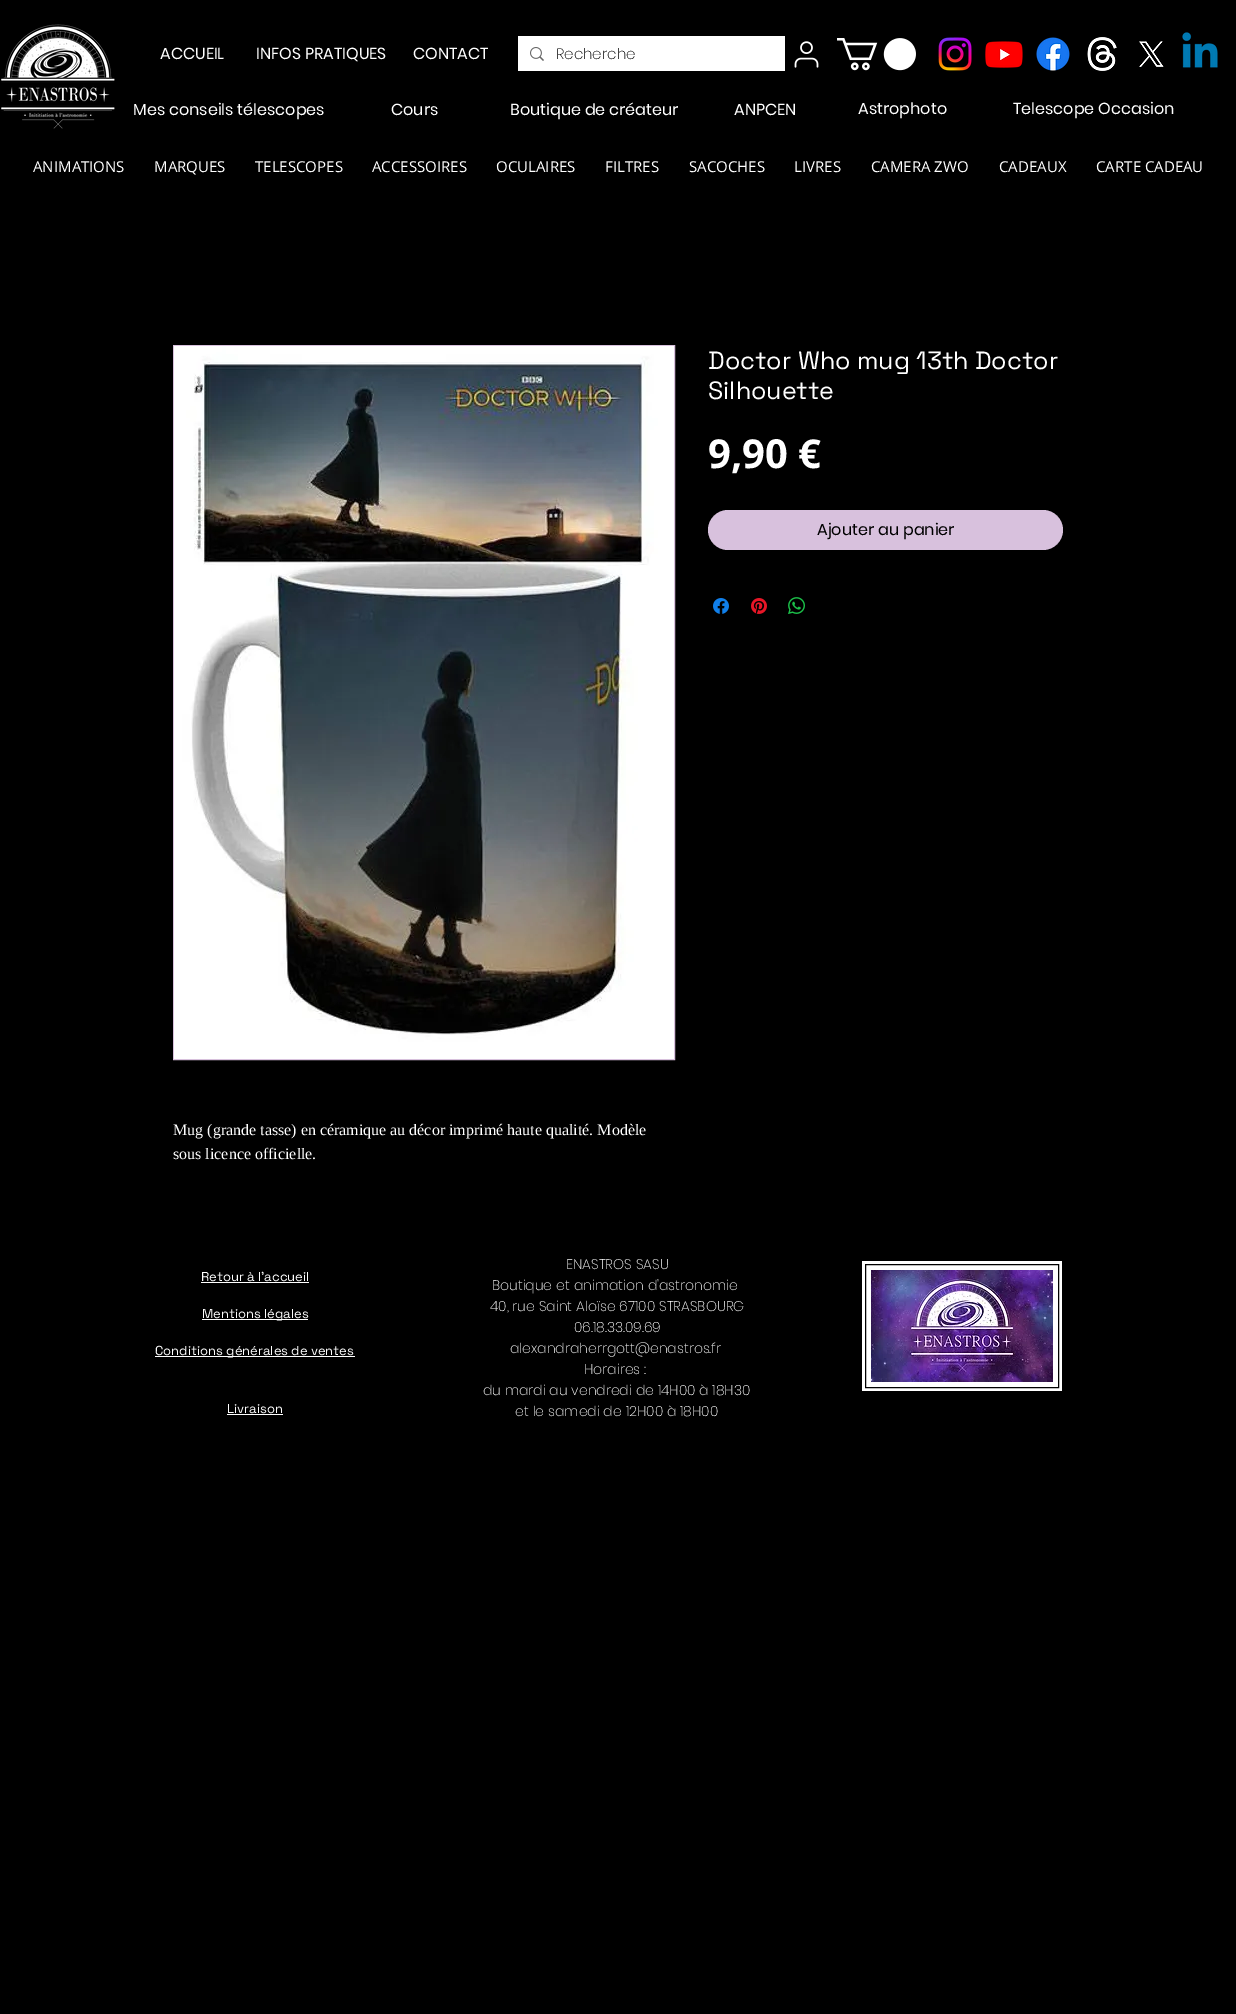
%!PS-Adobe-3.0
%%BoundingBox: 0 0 1236 2014
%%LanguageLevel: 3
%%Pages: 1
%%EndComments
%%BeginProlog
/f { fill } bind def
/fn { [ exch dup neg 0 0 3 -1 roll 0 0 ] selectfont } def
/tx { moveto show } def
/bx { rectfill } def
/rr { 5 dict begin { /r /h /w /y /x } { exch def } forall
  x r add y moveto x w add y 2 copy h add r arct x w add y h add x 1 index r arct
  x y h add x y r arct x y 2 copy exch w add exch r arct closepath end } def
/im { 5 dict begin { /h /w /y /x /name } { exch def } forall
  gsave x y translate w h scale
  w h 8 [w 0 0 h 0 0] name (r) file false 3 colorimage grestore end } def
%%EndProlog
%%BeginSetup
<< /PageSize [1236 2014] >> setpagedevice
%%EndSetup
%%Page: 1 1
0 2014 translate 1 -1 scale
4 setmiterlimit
0 setgray
0 0 1236 2014 bx
(image0.raw) 1 24 114 105 im
/Poppins-Regular 16 fn
1 setgray
(ACCUEIL) 160 59 tx
(INFOS PRATIQUES) 256 59 tx
(CONTACT) 413 59 tx
518 36 267 35 bx
(image1.raw) 530 47 14 14 im
/Poppins-ExtraLight 15 fn
0 setgray
(Recherche) 556 59 tx
(image2.raw) 794 41 25 27 im
(image3.raw) 837 38 79 33 im
(image4.raw) 938 37 34 34 im
(image5.raw) 985 41 38 27 im
(image6.raw) 1036 37 34 34 im
(image7.raw) 1087 37 30 34 im
(image8.raw) 1139 41 25 26 im
(image9.raw) 1182 32 36 36 im
/Poppins-Regular 16 fn
1 setgray
(Mes conseils télescopes) 133 115 tx
(Cours) 391 115 tx
(Boutique de créateur) 510 115 tx
(ANPCEN) 734 115 tx
(Astrophoto) 858 114 tx
(Telescope Occasion) 1013 114 tx
/OpenSans-Regular 15 fn
(ANIMATIONS) 33 172 tx
(MARQUES) 154 172 tx
(TELESCOPES) 255 172 tx
(ACCESSOIRES) 372 172 tx
(OCULAIRES) 496 172 tx
(FILTRES) 605 172 tx
(SACOCHES) 689 172 tx
(LIVRES) 794 172 tx
(CAMERA ZWO) 871 172 tx
(CADEAUX) 999 172 tx
(CARTE CADEAU) 1096 172 tx
/SpaceGrotesk-Regular 25 fn
(Doctor Who mug 13th Doctor) 708 369 tx
(Silhouette) 708 399 tx
/OpenSans-Bold 40 fn
(9,90 €) 708 468 tx
0.847 0.757 0.867 setrgbcolor
708 510 355 40 20 rr f
/Poppins-Regular 16 fn
0 setgray
(Ajouter au panier) 817 535 tx
(image10.raw) 713 598 16 16 im
(image11.raw) 751 598 16 16 im
(image12.raw) 788 597 17 17 im
0.847 0.757 0.867 setrgbcolor
173.5 345.5 501 714 rectstroke
(image13.raw) 174 346 500 713 im
/LiberationSerif-Regular 16 fn
1 setgray
(Mug \(grande tasse\) en céramique au décor imprimé haute qualité. Modèle) 173 1135 tx
(sous licence officielle.) 173 1159 tx
/SpaceGrotesk-Regular 13 fn
(Retour à l'accueil) 201 1281 tx
201 1282 108 1 bx
/Poppins-ExtraLight 14 fn
(ENASTROS SASU) 566 1269 tx
(Boutique et animation d'astronomie) 492 1290 tx
(40, rue Saint Aloïse 67100 STRASBOURG) 490 1311 tx
(06.18.33.09.69) 574 1332 tx
(alexandraherrgott@enastros.fr) 510 1353 tx
(Horaires :) 584 1374 tx
(du mardi au vendredi de 14H00 à 18H30) 483 1395 tx
(et le samedi de 12H00 à 18H00) 515 1416 tx
862 1261 200 130 bx
(image14.raw) 871 1270 182 112 im
0 setgray
865.5 1264.5 193 123 rectstroke
1 setgray
202 1319 106 1 bx
/SpaceGrotesk-Regular 13 fn
(Mentions légales) 202 1318 tx
155 1356 200 1 bx
(Conditions générales de ventes) 155 1355 tx
(Livraison) 227 1413 tx
227 1414 56 1 bx
showpage
%%EOF
